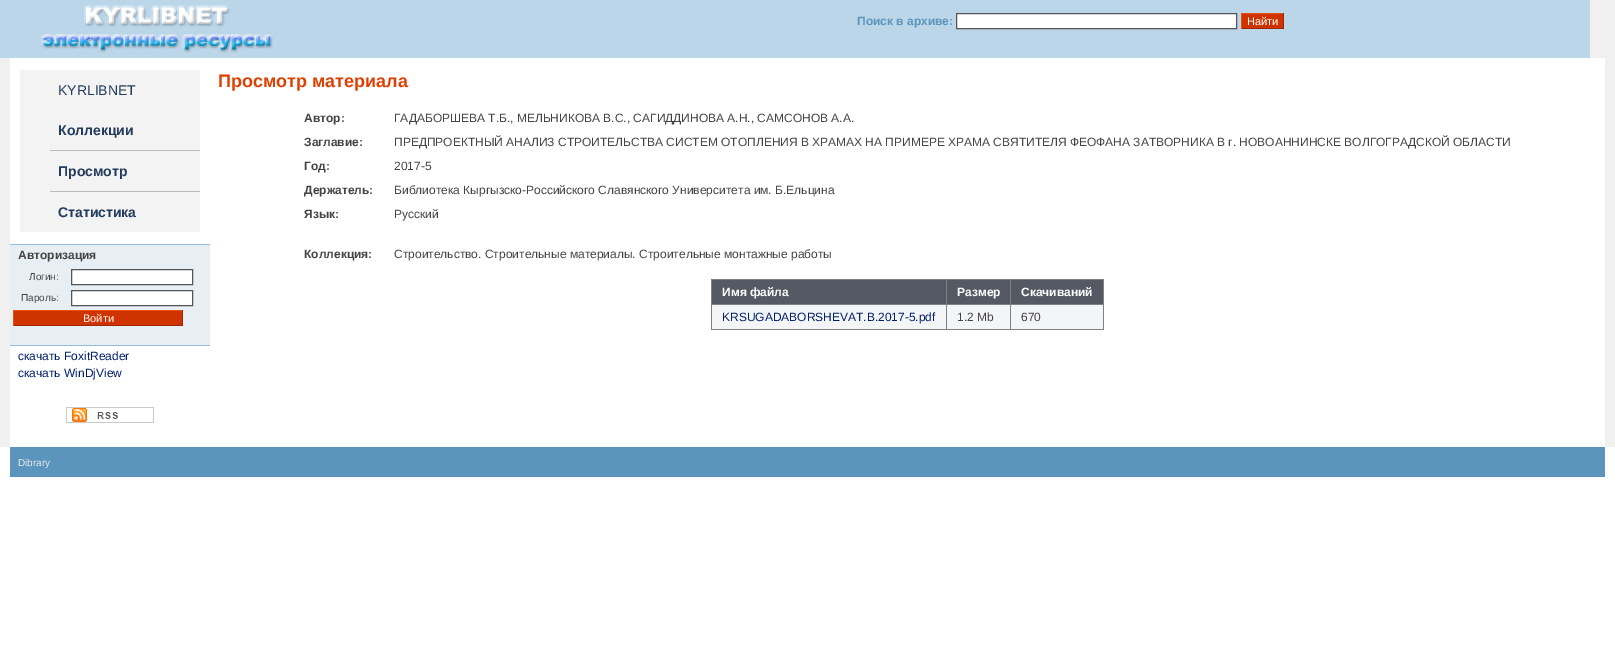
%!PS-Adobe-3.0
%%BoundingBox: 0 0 1615 654
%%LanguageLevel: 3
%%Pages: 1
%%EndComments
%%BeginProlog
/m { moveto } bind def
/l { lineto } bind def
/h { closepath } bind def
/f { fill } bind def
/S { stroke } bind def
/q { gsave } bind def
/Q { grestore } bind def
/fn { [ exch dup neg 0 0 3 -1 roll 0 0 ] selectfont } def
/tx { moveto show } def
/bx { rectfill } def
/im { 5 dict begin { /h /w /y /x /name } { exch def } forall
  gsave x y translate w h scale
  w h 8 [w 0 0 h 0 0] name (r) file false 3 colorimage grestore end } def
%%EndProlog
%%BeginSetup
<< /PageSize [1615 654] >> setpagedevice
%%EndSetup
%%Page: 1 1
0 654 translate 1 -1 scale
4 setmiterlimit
1 setgray
0 0 1615 654 bx
0.733 0.839 0.914 setrgbcolor
0 0 1590 58 bx
(image0.raw) 40 5 233 48 im
/LiberationSans-Bold 12 fn
0.357 0.58 0.737 setrgbcolor
(Поиск в архиве:) 857 25 tx
1 setgray
956.5 13.5 m 1236.5 13.5 l 1236.5 28.5 l 956.5 28.5 l h q f Q
0.333 0.333 0.345 setrgbcolor
S
0.808 0.2 0 setrgbcolor
1242 14 41 14 bx
0.933 0.302 0.063 setrgbcolor
1241 13 43 1 bx
0.624 0.149 0.004 setrgbcolor
1283 13 1 16 bx
1241 28 43 1 bx
0.933 0.302 0.063 setrgbcolor
1241 13 1 16 bx
/LiberationSans-Regular 11 fn
1 setgray
(Найти) 1247 25 tx
0.941 setgray
1590 0 25 58 bx
0 58 10 389 bx
0.953 setgray
20 70 180 162 bx
/LiberationSans-Regular 14 fn
0.141 0.235 0.365 setrgbcolor
(KYRLIBNET) 58 95 tx
/LiberationSans-Bold 14 fn
(Коллекции) 58 135 tx
0.733 setgray
50 150 150 1 bx
0.141 0.235 0.365 setrgbcolor
(Просмотр) 58 176 tx
0.733 setgray
50 191 150 1 bx
0.141 0.235 0.365 setrgbcolor
(Статистика) 58 217 tx
0.573 0.745 0.859 setrgbcolor
10 244 200 1 bx
0.906 0.933 0.957 setrgbcolor
10 245 200 100 bx
/LiberationSans-Bold 12 fn
0.267 setgray
(Авторизация) 18 259 tx
/LiberationSans-Regular 10 fn
(Логин:) 29 280 tx
1 setgray
71.5 269.5 m 192.5 269.5 l 192.5 284.5 l 71.5 284.5 l h q f Q
0.333 0.333 0.345 setrgbcolor
S
0.267 setgray
(Пароль:) 21 301 tx
1 setgray
71.5 290.5 m 192.5 290.5 l 192.5 305.5 l 71.5 305.5 l h q f Q
0.333 0.333 0.345 setrgbcolor
S
0.808 0.2 0 setrgbcolor
14 311 168 14 bx
0.933 0.302 0.063 setrgbcolor
13 310 170 1 bx
0.624 0.149 0.004 setrgbcolor
182 310 1 16 bx
13 325 170 1 bx
0.933 0.302 0.063 setrgbcolor
13 310 1 16 bx
/LiberationSans-Regular 11 fn
1 setgray
(Войти) 83 322 tx
0.573 0.745 0.859 setrgbcolor
10 345 200 1 bx
/LiberationSans-Regular 12 fn
0 0.122 0.42 setrgbcolor
(скачать FoxitReader) 18 360 tx
(скачать WinDjView) 18 377 tx
(image1.raw) 66 407 88 16 im
/LiberationSans-Bold 18 fn
0.878 0.247 0.008 setrgbcolor
(Просмотр материала) 218 87 tx
/LiberationSans-Bold 12 fn
0.267 setgray
(Автор:) 304 122 tx
/LiberationSans-Regular 12 fn
(ГАДАБОРШЕВА Т.Б., МЕЛЬНИКОВА В.С., САГИДДИНОВА А.Н., САМСОНОВ А.А.) 394 122 tx
/LiberationSans-Bold 12 fn
(Заглавие:) 304 146 tx
/LiberationSans-Regular 12 fn
(ПРЕДПРОЕКТНЫЙ АНАЛИЗ СТРОИТЕЛЬСТВА СИСТЕМ ОТОПЛЕНИЯ В ХРАМАХ НА ПРИМЕРЕ ХРАМА СВЯТИТЕЛЯ ФЕОФАНА ЗАТВОРНИКА В г. НОВОАННИНСКЕ ВОЛГОГРАДСКОЙ ОБЛАСТИ) 394 146 tx
/LiberationSans-Bold 12 fn
(Год:) 304 170 tx
/LiberationSans-Regular 12 fn
(2017-5) 394 170 tx
/LiberationSans-Bold 12 fn
(Держатель:) 304 194 tx
/LiberationSans-Regular 12 fn
(Библиотека Кыргызско-Российского Славянского Университета им. Б.Eльцина) 394 194 tx
/LiberationSans-Bold 12 fn
(Язык:) 304 218 tx
/LiberationSans-Regular 12 fn
(Русский) 394 218 tx
/LiberationSans-Bold 12 fn
(Коллекция:) 304 258 tx
/LiberationSans-Regular 12 fn
(Строительство. Строительные материалы. Строительные монтажные работы) 394 258 tx
0.502 setgray
711 279 393 1 bx
1103 279 1 51 bx
711 329 393 1 bx
711 279 1 51 bx
0.333 0.349 0.392 setrgbcolor
712 280 391 24 bx
/LiberationSans-Bold 12 fn
1 setgray
(Имя файла) 722 296 tx
0.502 setgray
1010 304 94 1 bx
0.957 0.961 0.969 setrgbcolor
712 305 391 24 bx
0.502 setgray
1010 304 1 26 bx
946 304 65 1 bx
946 304 1 26 bx
711 304 236 1 bx
946 279 1 26 bx
1 setgray
(Размер) 957 296 tx
0.502 setgray
1010 279 1 26 bx
1 setgray
(Скачиваний) 1021 296 tx
/LiberationSans-Regular 12 fn
0 0.122 0.42 setrgbcolor
(KRSUGADABORSHEVAT.B.2017-5.pdf) 722 321 tx
0.267 setgray
(1.2 Mb) 957 321 tx
(670) 1021 321 tx
0.941 setgray
1605 58 10 389 bx
0.357 0.58 0.737 setrgbcolor
10 447 1595 30 bx
/LiberationSans-Regular 10 fn
0.933 setgray
(Dibrary) 18 466 tx
showpage
%%EOF
